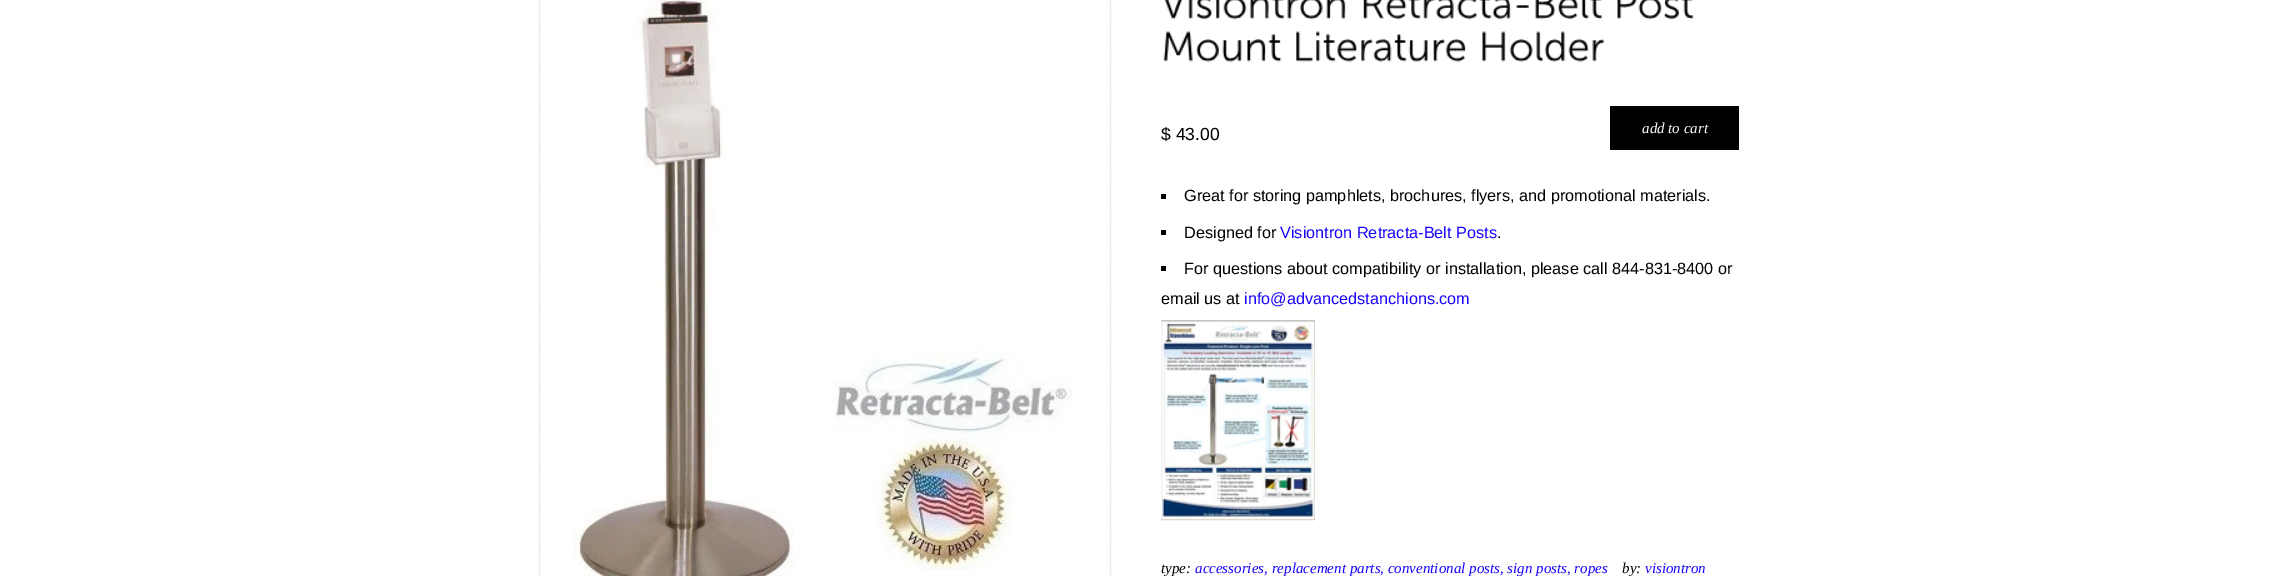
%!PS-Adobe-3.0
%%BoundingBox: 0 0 2277 576
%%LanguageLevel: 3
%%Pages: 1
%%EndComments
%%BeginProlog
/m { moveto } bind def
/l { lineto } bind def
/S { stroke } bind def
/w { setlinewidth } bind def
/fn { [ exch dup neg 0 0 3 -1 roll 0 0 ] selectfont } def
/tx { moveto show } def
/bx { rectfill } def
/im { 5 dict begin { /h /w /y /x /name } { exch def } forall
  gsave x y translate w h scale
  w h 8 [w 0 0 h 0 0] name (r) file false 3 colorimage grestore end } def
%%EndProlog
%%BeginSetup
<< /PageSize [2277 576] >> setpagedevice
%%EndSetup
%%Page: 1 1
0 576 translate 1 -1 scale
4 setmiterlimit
1 setgray
0 0 2277 576 bx
0.847 setgray
1.2 w
[1.25 1.25] 0 setdash
1110.5 -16 m 1110.5 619 l S
539.5 -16 m 539.5 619 l S
(image0.raw) 574 0 499 576 im
(image1.raw) 1164 0 182 20 im
(image2.raw) 1363 0 240 20 im
(image3.raw) 1617 0 77 20 im
(image4.raw) 1163 31 119 31 im
(image5.raw) 1296 31 170 31 im
(image6.raw) 1482 31 122 31 im
/LiberationSans-Regular 17.5 fn
0 setgray
($ 43.00) 1161 140 tx
1610 106 129 44 bx
/LiberationSerif-Italic 15 fn
1 setgray
(add to cart) 1642 133 tx
0 setgray
1161 194 5 5 bx
/LiberationSans-Regular 16.25 fn
(Great for storing pamphlets, brochures, flyers, and promotional materials.) 1184 201 tx
1161 230 5 5 bx
(Designed for) 1184 238 tx
0.094 0.012 0.988 setrgbcolor
(Visiontron Retracta-Belt Posts) 1280 238 tx
0 setgray
(.) 1497 238 tx
1161 266 5 5 bx
(For questions about compatibility or installation, please call 844-831-8400 or) 1184 274 tx
(email us at) 1161 304 tx
0.094 0.012 0.988 setrgbcolor
(info@advancedstanchions.com) 1244 304 tx
(image7.raw) 1161 320 154 201 im
/LiberationSerif-Italic 15 fn
0 setgray
(type:) 1161 573 tx
0.094 0.012 0.988 setrgbcolor
(accessories, replacement parts, conventional posts, sign posts, ropes) 1195 573 tx
0 setgray
(by:) 1622 573 tx
0.094 0.012 0.988 setrgbcolor
(visiontron) 1645 573 tx
showpage
%%EOF
